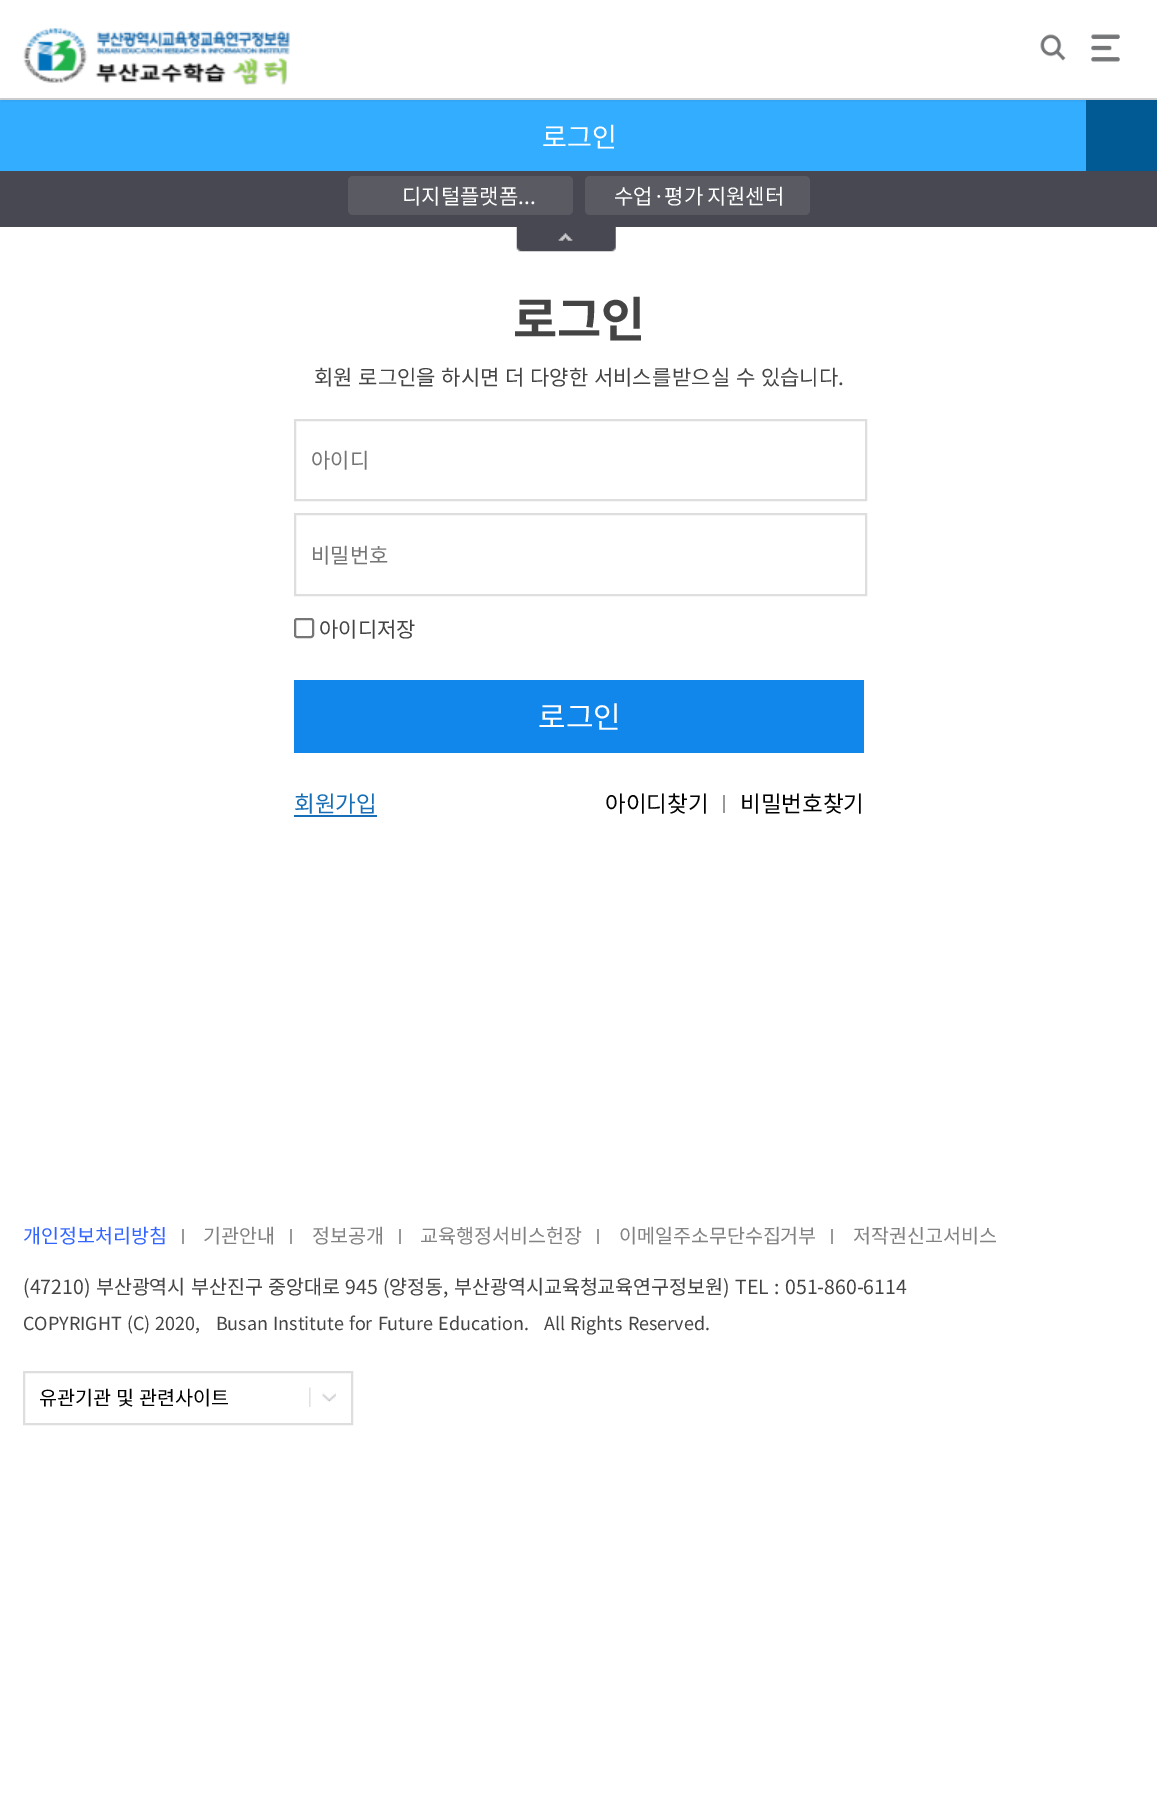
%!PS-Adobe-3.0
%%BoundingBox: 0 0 1157 1797
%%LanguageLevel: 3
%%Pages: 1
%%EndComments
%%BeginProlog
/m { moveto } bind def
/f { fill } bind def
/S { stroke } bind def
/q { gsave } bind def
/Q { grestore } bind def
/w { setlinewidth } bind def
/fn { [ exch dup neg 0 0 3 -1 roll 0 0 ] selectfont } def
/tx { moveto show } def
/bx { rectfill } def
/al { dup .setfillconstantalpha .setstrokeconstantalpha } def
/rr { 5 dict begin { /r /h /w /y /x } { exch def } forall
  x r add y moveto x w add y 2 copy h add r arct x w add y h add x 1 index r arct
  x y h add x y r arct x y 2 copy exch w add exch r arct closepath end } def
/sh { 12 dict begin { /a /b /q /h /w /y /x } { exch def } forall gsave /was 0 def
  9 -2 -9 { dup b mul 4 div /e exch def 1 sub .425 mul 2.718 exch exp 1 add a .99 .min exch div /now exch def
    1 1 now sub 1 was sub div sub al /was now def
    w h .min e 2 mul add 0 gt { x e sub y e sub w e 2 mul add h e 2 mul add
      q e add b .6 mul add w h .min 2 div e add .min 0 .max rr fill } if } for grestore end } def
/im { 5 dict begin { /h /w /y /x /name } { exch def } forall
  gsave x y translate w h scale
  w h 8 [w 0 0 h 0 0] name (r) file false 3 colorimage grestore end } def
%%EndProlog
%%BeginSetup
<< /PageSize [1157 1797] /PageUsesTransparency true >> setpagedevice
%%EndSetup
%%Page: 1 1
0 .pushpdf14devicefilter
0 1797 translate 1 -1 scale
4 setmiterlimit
1 setgray
0 0 1157 1797 bx
0.2 0.678 1 setrgbcolor
0 100 1086 71 bx
0.008 0.353 0.584 setrgbcolor
1086 100 71 71 bx
q
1 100 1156 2 rectclip
0 setgray
0 0 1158 99 0 4 0.1 sh
Q
0.8 setgray
0 98 1157 2 bx
(image0.raw) 23 28 267 58 im
(image1.raw) 1040 34 26 27 im
(image2.raw) 1091 34 29 28 im
/NotoSansKR-Regular 27 fn
1 setgray
(로그인) 542 147 tx
0.278 0.282 0.318 setrgbcolor
0 171 1157 56 bx
0.349 0.353 0.384 setrgbcolor
348 176 225 39 5 rr f
/NotoSansKR-Regular 21 fn
1 setgray
(디지털플랫폼...) 402 204 tx
0.349 0.353 0.384 setrgbcolor
585 176 225 39 5 rr f
1 setgray
614 204 m -1 0 32 (수업·평가 지원센터) widthshow
(image3.raw) 516 227 100 25 im
/NotoSansKR-Bold 48 fn
0.267 setgray
(로그인) 513 337 tx
/NotoSansKR-Regular 21 fn
314 385 m 1 0 32 (회원 로그인을 하시면 더 다양한 서비스를) widthshow
672 385 m 1 0 32 (받으실 수 있습니다.) widthshow
0.871 setgray
2 w
295 420 571 80 rectstroke
0.459 setgray
(아이디) 311 468 tx
0.871 setgray
295 514 571 81 rectstroke
0.459 setgray
(비밀번호) 311 563 tx
0.463 setgray
295 619 18 18 2 rr S
0.267 setgray
(아이디저장) 319 637 tx
0.071 0.529 0.922 setrgbcolor
294 680 570 73 bx
/NotoSansKR-Regular 30 fn
1 setgray
(로그인) 538 728 tx
/NotoSansKR-Regular 22.5 fn
0.086 0.431 0.714 setrgbcolor
(회원가입) 294 812 tx
294 815 83 2 bx
0 setgray
(아이디찾기) 605 812 tx
0.6 setgray
723 795 2 18 bx
0 setgray
(비밀번호찾기) 740 812 tx
/NotoSansKR-Regular 19.5 fn
0.2 0.4 1 setrgbcolor
(개인정보처리방침) 23 1243 tx
0.6 setgray
182 1229 2 15 bx
0.51 setgray
(기관안내) 203 1243 tx
0.6 setgray
290 1229 2 15 bx
0.51 setgray
(정보공개) 312 1243 tx
0.6 setgray
399 1229 2 15 bx
0.51 setgray
(교육행정서비스헌장) 420 1243 tx
0.6 setgray
597 1229 2 15 bx
0.51 setgray
(이메일주소무단수집거부) 619 1243 tx
0.6 setgray
831 1229 2 15 bx
0.51 setgray
(저작권신고서비스) 853 1243 tx
0.267 setgray
23 1294 m 1 0 32 (\(47210\) 부산광역시 부산진구 중앙대로 945 \(양정동, 부산광역시교육청교육연구정보원\) TEL : 051-860-6114) widthshow
/NotoSansKR-Regular 18 fn
23 1330 m 1 0 32 (COPYRIGHT \(C\) 2020,   Busan Institute for Future Education.   All Rights Reserved.) widthshow
(image4.raw) 309 1387 27 20 im
0.871 setgray
24 1372 328 52 rectstroke
/NotoSansKR-Regular 19.5 fn
0 setgray
39 1405 m 1 0 32 (유관기관 및 관련사이트) widthshow
.poppdf14devicefilter showpage
%%EOF
